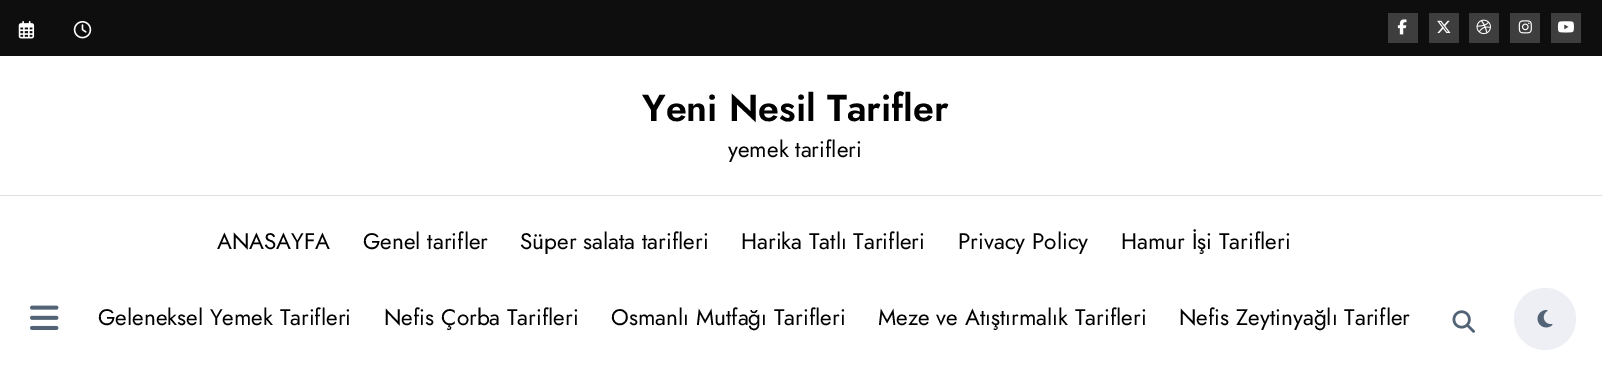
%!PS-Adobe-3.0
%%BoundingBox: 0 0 1602 371
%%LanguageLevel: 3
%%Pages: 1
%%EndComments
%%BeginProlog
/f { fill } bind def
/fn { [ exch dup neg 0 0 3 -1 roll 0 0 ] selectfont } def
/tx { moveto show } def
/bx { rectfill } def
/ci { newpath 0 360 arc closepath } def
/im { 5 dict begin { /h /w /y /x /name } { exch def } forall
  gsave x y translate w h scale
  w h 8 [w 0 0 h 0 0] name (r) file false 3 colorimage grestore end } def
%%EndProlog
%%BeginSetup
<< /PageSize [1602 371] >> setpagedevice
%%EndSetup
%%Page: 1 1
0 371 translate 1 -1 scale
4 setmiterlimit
0.055 setgray
0 0 1602 371 bx
(image0.raw) 18 21 17 18 im
(image1.raw) 73 20 19 19 im
0.243 setgray
1388 13 30 30 bx
(image2.raw) 1397 19 10 16 im
1429 13 30 30 bx
(image3.raw) 1437 20 14 13 im
1469 13 30 30 bx
(image4.raw) 1476 19 15 16 im
1510 13 30 30 bx
(image5.raw) 1518 20 14 14 im
1551 13 30 30 bx
(image6.raw) 1557 21 17 12 im
1 setgray
0 56 1602 315 bx
/Jost-SemiBold 37.5 fn
0 setgray
(Yeni Nesil Tarifler) 642 121 tx
/Jost-Regular 22.5 fn
(yemek tarifleri) 728 157 tx
0.882 setgray
0 195 1602 1 bx
(image7.raw) 30 305 29 25 im
0 setgray
(ANASAYFA) 217 249 tx
(Genel tarifler) 363 249 tx
(Süper salata tarifleri) 520 249 tx
(Harika Tatlı Tarifleri) 741 249 tx
(Privacy Policy) 958 249 tx
(Hamur İşi Tarifleri) 1121 249 tx
(Geleneksel Yemek Tarifleri) 98 325 tx
(Nefis Çorba Tarifleri) 384 325 tx
(Osmanlı Mutfağı Tarifleri) 611 325 tx
(Meze ve Atıştırmalık Tarifleri) 878 325 tx
(Nefis Zeytinyağlı Tarifler) 1179 325 tx
(image8.raw) 1452 310 23 23 im
0.933 0.933 0.961 setrgbcolor
1545 319 31 ci f
(image9.raw) 1537 310 16 18 im
showpage
%%EOF
